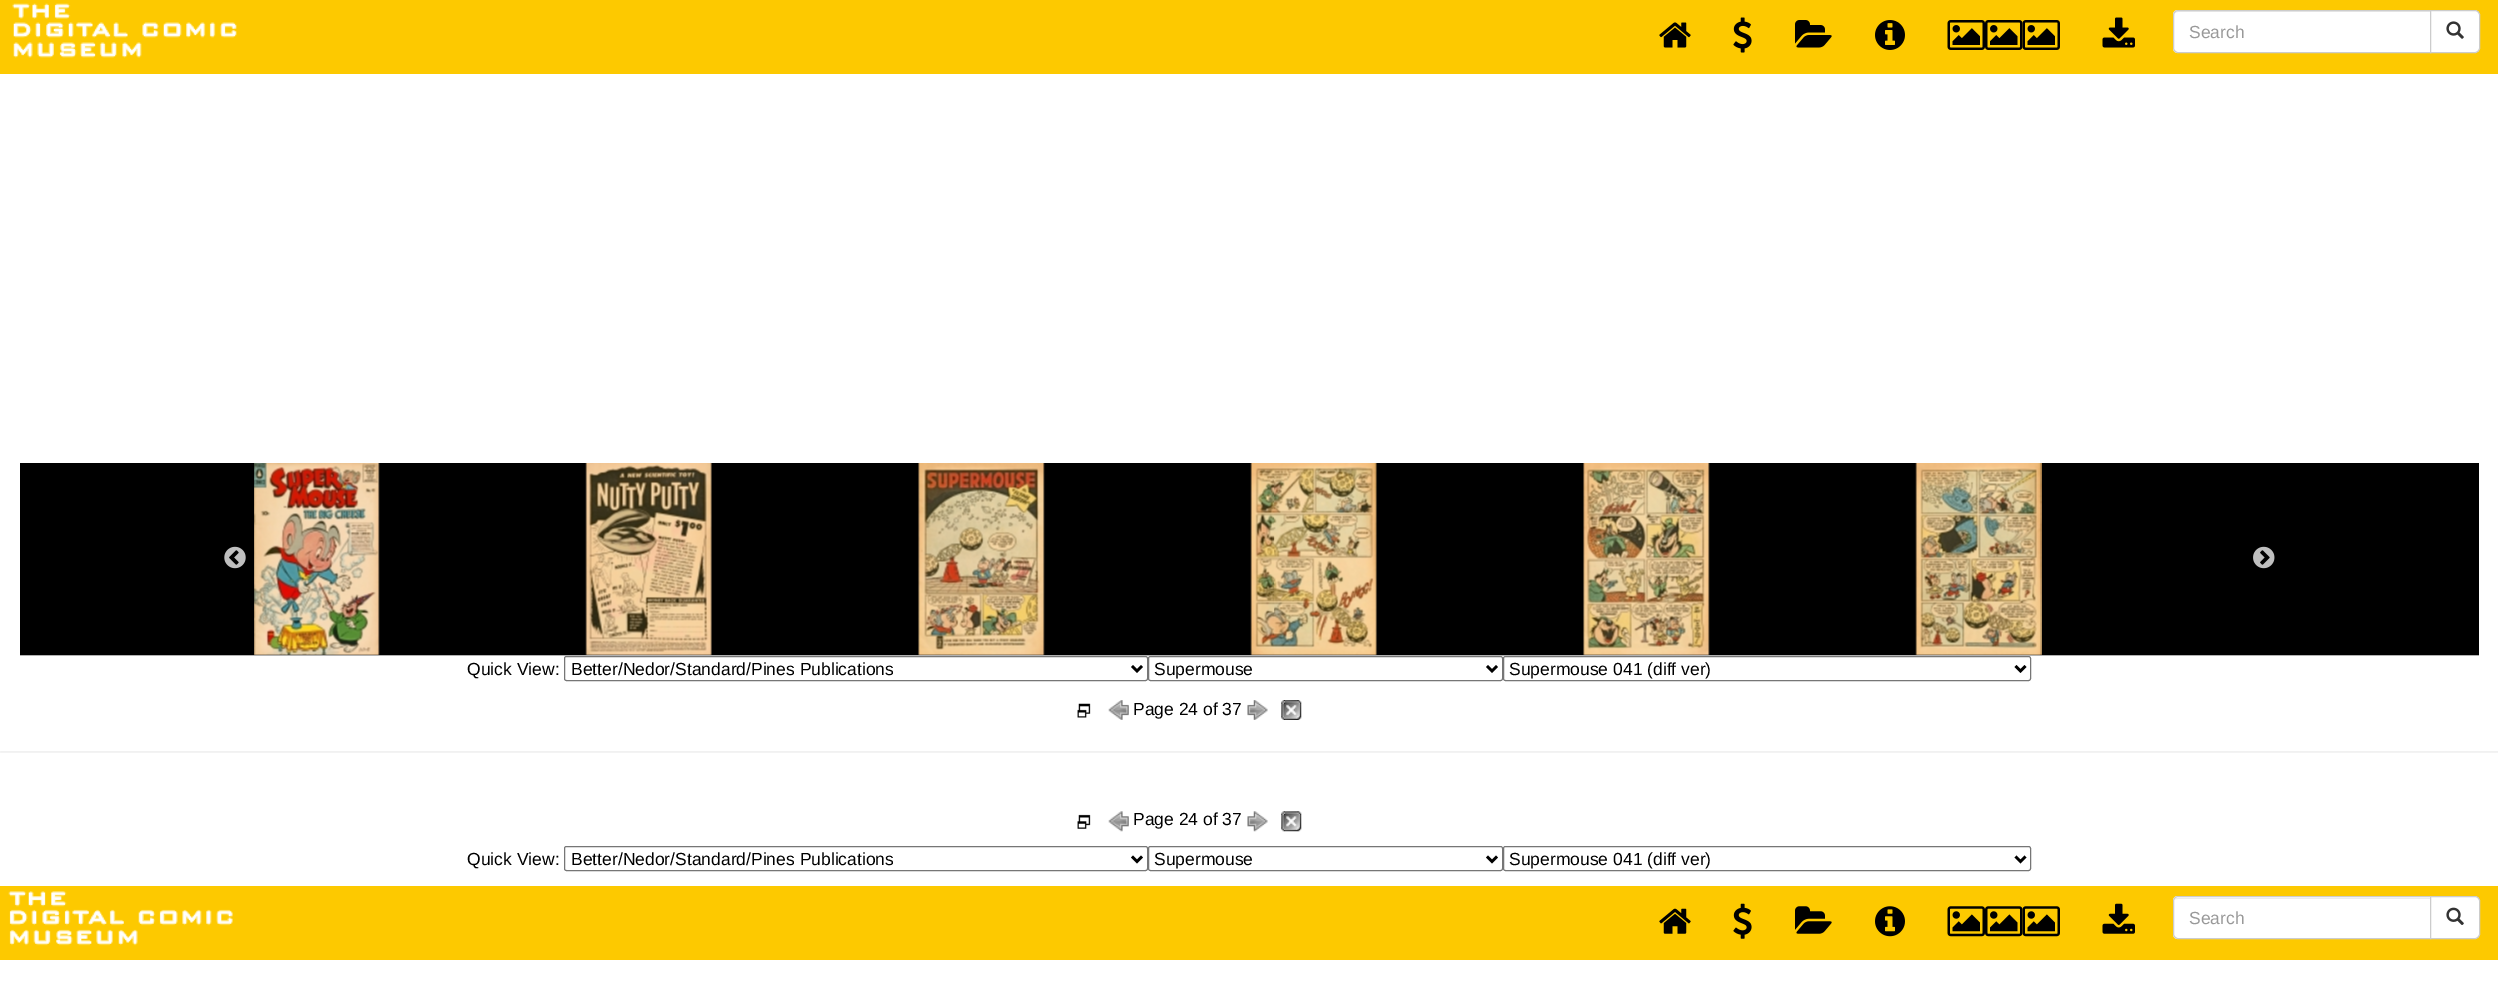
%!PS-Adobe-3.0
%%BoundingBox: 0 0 2498 994
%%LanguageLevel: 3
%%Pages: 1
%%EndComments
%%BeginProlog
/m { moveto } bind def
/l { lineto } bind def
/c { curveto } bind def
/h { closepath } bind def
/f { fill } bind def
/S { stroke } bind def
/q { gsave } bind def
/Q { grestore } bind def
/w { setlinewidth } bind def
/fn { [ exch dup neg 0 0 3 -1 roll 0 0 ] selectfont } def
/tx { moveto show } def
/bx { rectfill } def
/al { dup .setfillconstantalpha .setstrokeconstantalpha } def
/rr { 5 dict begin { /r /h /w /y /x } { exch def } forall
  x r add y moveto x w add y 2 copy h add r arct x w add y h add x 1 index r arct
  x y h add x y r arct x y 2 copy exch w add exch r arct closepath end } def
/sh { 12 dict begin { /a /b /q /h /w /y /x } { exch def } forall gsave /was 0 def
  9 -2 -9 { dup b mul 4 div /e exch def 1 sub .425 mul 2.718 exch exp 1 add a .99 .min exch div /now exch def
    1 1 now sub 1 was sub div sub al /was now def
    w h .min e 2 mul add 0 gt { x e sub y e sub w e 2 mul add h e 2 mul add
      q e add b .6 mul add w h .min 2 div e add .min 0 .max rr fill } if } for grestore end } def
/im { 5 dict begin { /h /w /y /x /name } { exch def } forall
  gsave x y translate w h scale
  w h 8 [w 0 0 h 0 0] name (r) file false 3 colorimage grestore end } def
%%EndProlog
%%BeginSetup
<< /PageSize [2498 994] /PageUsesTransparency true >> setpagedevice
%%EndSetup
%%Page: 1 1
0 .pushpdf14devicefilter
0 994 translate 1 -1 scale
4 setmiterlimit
1 setgray
0 0 2498 994 bx
0.992 0.788 0 setrgbcolor
0 0 2498 74 bx
(image0.raw) 12 3 225 55 im
(image1.raw) 1659 22 32 26 im
(image2.raw) 1733 17 19 36 im
(image3.raw) 1795 20 37 28 im
(image4.raw) 1875 20 30 30 im
(image5.raw) 1947 20 38 30 im
(image6.raw) 1985 20 38 30 im
(image7.raw) 2022 20 38 30 im
(image8.raw) 2102 17 33 31 im
1 setgray
2178 10 m 2431 10 l 2431 53 l 2178 53 l 2175 53 2173 51 2173 48 c 2173 15 l 2173 12 2175 10 2178 10 c h f
0.925 setgray
2178 12 m 2430 12 l 2430 11 l 2178 11 l 2176 11 2174 13 2174 15 c 2174 16 l 2174 14 2175 12 2178 12 c h f
0.8 setgray
2178 10.5 m 2430.5 10.5 l 2430.5 52.5 l 2178 52.5 l 2175.5 52.5 2173.5 50.5 2173.5 48 c 2173.5 15 l 2173.5 12.5 2175.5 10.5 2178 10.5 c h S
/LiberationSans-Regular 17.5 fn
0.6 setgray
(Search) 2189 38 tx
1 setgray
2430.5 10.5 m 2475 10.5 l 2477.5 10.5 2479.5 12.5 2479.5 15 c 2479.5 48 l 2479.5 50.5 2477.5 52.5 2475 52.5 c 2430.5 52.5 l h q f Q
0.8 setgray
S
(image9.raw) 2446 21 18 18 im
q
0 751 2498 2 rectclip
0 setgray
0 450 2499 303 0 0.5 0.05 sh
Q
0 setgray
20 463 2459 192 bx
0.694 setgray
20 655 2459 1 bx
(image10.raw) 224 546 22 23 im
(image11.raw) 254 463 126 192 im
(image12.raw) 585 463 127 192 im
(image13.raw) 918 463 127 192 im
(image14.raw) 1250 463 127 192 im
(image15.raw) 1583 463 127 192 im
(image16.raw) 1915 463 127 192 im
(image17.raw) 2253 546 22 23 im
0 setgray
(Quick View:) 467 675 tx
0.463 setgray
564.5 656.5 583 24 2 rr S
0 setgray
2.5 w
1132 666 m 1137 671 l 1142 666 l S
(Better/Nedor/Standard/Pines Publications) 571 675 tx
0.463 setgray
1 w
1148.5 656.5 354 24 2 rr S
0 setgray
2.5 w
1487 666 m 1492 671 l 1497 666 l S
(Supermouse) 1154 675 tx
0.463 setgray
1 w
1503.5 656.5 527 24 2 rr S
0 setgray
2.5 w
2015.5 666 m 2020.5 671 l 2025.5 666 l S
(Supermouse 041 \(diff ver\)) 1509 675 tx
(image18.raw) 1077 703 14 15 im
(image19.raw) 1108 700 21 20 im
(Page 24 of 37) 1133 715 tx
(image20.raw) 1247 700 21 20 im
(image21.raw) 1281 700 21 20 im
(image22.raw) 1077 814 14 15 im
(image23.raw) 1108 811 21 21 im
(Page 24 of 37) 1133 825 tx
(image24.raw) 1247 811 21 21 im
(image25.raw) 1281 811 21 21 im
(Quick View:) 467 865 tx
0.463 setgray
1 w
564.5 846.5 583 24 2 rr S
0 setgray
2.5 w
1132 856.5 m 1137 861.5 l 1142 856.5 l S
(Better/Nedor/Standard/Pines Publications) 571 865 tx
0.463 setgray
1 w
1148.5 846.5 354 24 2 rr S
0 setgray
2.5 w
1487 856.5 m 1492 861.5 l 1497 856.5 l S
(Supermouse) 1154 865 tx
0.463 setgray
1 w
1503.5 846.5 527 24 2 rr S
0 setgray
2.5 w
2015.5 856.5 m 2020.5 861.5 l 2025.5 856.5 l S
(Supermouse 041 \(diff ver\)) 1509 865 tx
0.992 0.788 0 setrgbcolor
0 886 2498 74 bx
(image26.raw) 8 891 225 55 im
(image27.raw) 1659 908 32 26 im
(image28.raw) 1733 903 19 36 im
(image29.raw) 1795 906 37 28 im
(image30.raw) 1875 906 30 31 im
(image31.raw) 1947 906 38 31 im
(image32.raw) 1985 906 38 31 im
(image33.raw) 2022 906 38 31 im
(image34.raw) 2102 903 33 31 im
1 setgray
2178 896 m 2431 896 l 2431 939 l 2178 939 l 2175 939 2173 937 2173 934 c 2173 901 l 2173 898 2175 896 2178 896 c h f
0.925 setgray
2178 899 m 2430 899 l 2430 898 l 2178 898 l 2176 898 2175 899 2174 900 c 2175 899 2176 899 2178 899 c h f
0.8 setgray
1 w
2178 896.5 m 2430.5 896.5 l 2430.5 938.5 l 2178 938.5 l 2175.5 938.5 2173.5 936.5 2173.5 934 c 2173.5 901 l 2173.5 898.5 2175.5 896.5 2178 896.5 c h S
0.6 setgray
(Search) 2189 924 tx
1 setgray
2430.5 896.5 m 2475 896.5 l 2477.5 896.5 2479.5 898.5 2479.5 901 c 2479.5 934 l 2479.5 936.5 2477.5 938.5 2475 938.5 c 2430.5 938.5 l h q f Q
0.8 setgray
S
(image35.raw) 2446 907 18 18 im
.poppdf14devicefilter showpage
%%EOF
